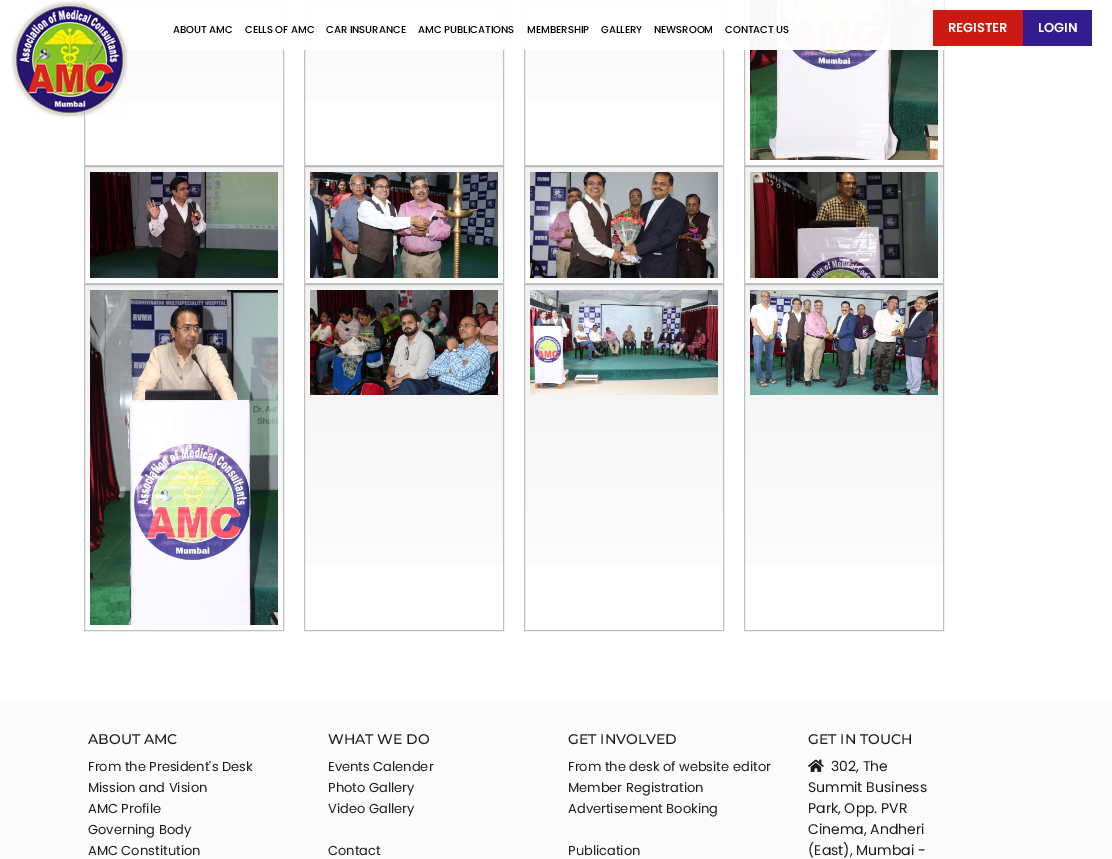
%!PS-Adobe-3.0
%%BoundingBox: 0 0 1112 859
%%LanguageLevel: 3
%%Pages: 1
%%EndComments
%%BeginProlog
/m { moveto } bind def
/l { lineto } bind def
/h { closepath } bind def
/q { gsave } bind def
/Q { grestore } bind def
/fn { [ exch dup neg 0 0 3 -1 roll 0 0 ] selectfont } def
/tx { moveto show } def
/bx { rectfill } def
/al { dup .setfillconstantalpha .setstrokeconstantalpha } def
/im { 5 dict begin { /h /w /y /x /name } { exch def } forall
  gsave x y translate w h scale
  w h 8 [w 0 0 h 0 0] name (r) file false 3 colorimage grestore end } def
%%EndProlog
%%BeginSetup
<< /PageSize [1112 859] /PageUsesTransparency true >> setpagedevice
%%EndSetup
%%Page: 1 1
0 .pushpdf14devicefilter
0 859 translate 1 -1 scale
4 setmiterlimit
1 setgray
0 0 1112 859 bx
q 85 0 m 283 0 l 283 101 l 85 101 l h clip newpath
<< /ShadingType 2 /ColorSpace /DeviceRGB /Coords [184 -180 184 165] /Extend [true true] /Function << /FunctionType 3 /Domain [0 1] /Functions [<< /FunctionType 2 /Domain [0 1] /C0 [0.949 0.949 0.949] /C1 [0.949 0.949 0.949] /N 1 >> << /FunctionType 2 /Domain [0 1] /C0 [0.949 0.949 0.949] /C1 [1 1 1] /N 1 >>] /Bounds [0.04] /Encode [0 1 0 1] >> >> shfill Q
0.749 setgray
84.5 -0.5 199 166 rectstroke
q 305 0 m 503 0 l 503 101 l 305 101 l h clip newpath
<< /ShadingType 2 /ColorSpace /DeviceRGB /Coords [404 -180 404 165] /Extend [true true] /Function << /FunctionType 3 /Domain [0 1] /Functions [<< /FunctionType 2 /Domain [0 1] /C0 [0.949 0.949 0.949] /C1 [0.949 0.949 0.949] /N 1 >> << /FunctionType 2 /Domain [0 1] /C0 [0.949 0.949 0.949] /C1 [1 1 1] /N 1 >>] /Bounds [0.04] /Encode [0 1 0 1] >> >> shfill Q
304.5 -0.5 199 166 rectstroke
q 525 0 m 723 0 l 723 101 l 525 101 l h clip newpath
<< /ShadingType 2 /ColorSpace /DeviceRGB /Coords [624 -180 624 165] /Extend [true true] /Function << /FunctionType 3 /Domain [0 1] /Functions [<< /FunctionType 2 /Domain [0 1] /C0 [0.949 0.949 0.949] /C1 [0.949 0.949 0.949] /N 1 >> << /FunctionType 2 /Domain [0 1] /C0 [0.949 0.949 0.949] /C1 [1 1 1] /N 1 >>] /Bounds [0.04] /Encode [0 1 0 1] >> >> shfill Q
524.5 -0.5 199 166 rectstroke
q 745 0 m 943 0 l 943 101 l 745 101 l h clip newpath
<< /ShadingType 2 /ColorSpace /DeviceRGB /Coords [844 -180 844 165] /Extend [true true] /Function << /FunctionType 3 /Domain [0 1] /Functions [<< /FunctionType 2 /Domain [0 1] /C0 [0.949 0.949 0.949] /C1 [0.949 0.949 0.949] /N 1 >> << /FunctionType 2 /Domain [0 1] /C0 [0.949 0.949 0.949] /C1 [1 1 1] /N 1 >>] /Bounds [0.04] /Encode [0 1 0 1] >> >> shfill Q
744.5 -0.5 199 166 rectstroke
(image0.raw) 750 0 188 160 im
q 85 167 m 283 167 l 283 263 l 85 263 l h clip newpath
<< /ShadingType 2 /ColorSpace /DeviceRGB /Coords [184 167 184 283] /Extend [true true] /Function << /FunctionType 3 /Domain [0 1] /Functions [<< /FunctionType 2 /Domain [0 1] /C0 [0.949 0.949 0.949] /C1 [0.949 0.949 0.949] /N 1 >> << /FunctionType 2 /Domain [0 1] /C0 [0.949 0.949 0.949] /C1 [1 1 1] /N 1 >>] /Bounds [0.12] /Encode [0 1 0 1] >> >> shfill Q
84.5 166.5 199 117 rectstroke
(image1.raw) 90 172 188 106 im
q 305 167 m 503 167 l 503 263 l 305 263 l h clip newpath
<< /ShadingType 2 /ColorSpace /DeviceRGB /Coords [404 167 404 283] /Extend [true true] /Function << /FunctionType 3 /Domain [0 1] /Functions [<< /FunctionType 2 /Domain [0 1] /C0 [0.949 0.949 0.949] /C1 [0.949 0.949 0.949] /N 1 >> << /FunctionType 2 /Domain [0 1] /C0 [0.949 0.949 0.949] /C1 [1 1 1] /N 1 >>] /Bounds [0.12] /Encode [0 1 0 1] >> >> shfill Q
304.5 166.5 199 117 rectstroke
(image2.raw) 310 172 188 106 im
q 525 167 m 723 167 l 723 263 l 525 263 l h clip newpath
<< /ShadingType 2 /ColorSpace /DeviceRGB /Coords [624 167 624 283] /Extend [true true] /Function << /FunctionType 3 /Domain [0 1] /Functions [<< /FunctionType 2 /Domain [0 1] /C0 [0.949 0.949 0.949] /C1 [0.949 0.949 0.949] /N 1 >> << /FunctionType 2 /Domain [0 1] /C0 [0.949 0.949 0.949] /C1 [1 1 1] /N 1 >>] /Bounds [0.12] /Encode [0 1 0 1] >> >> shfill Q
524.5 166.5 199 117 rectstroke
(image3.raw) 530 172 188 106 im
q 745 167 m 943 167 l 943 263 l 745 263 l h clip newpath
<< /ShadingType 2 /ColorSpace /DeviceRGB /Coords [844 167 844 283] /Extend [true true] /Function << /FunctionType 3 /Domain [0 1] /Functions [<< /FunctionType 2 /Domain [0 1] /C0 [0.949 0.949 0.949] /C1 [0.949 0.949 0.949] /N 1 >> << /FunctionType 2 /Domain [0 1] /C0 [0.949 0.949 0.949] /C1 [1 1 1] /N 1 >>] /Bounds [0.12] /Encode [0 1 0 1] >> >> shfill Q
744.5 166.5 199 117 rectstroke
(image4.raw) 750 172 188 106 im
q 85 285 m 283 285 l 283 566 l 85 566 l h clip newpath
<< /ShadingType 2 /ColorSpace /DeviceRGB /Coords [184 285 184 630] /Extend [true true] /Function << /FunctionType 3 /Domain [0 1] /Functions [<< /FunctionType 2 /Domain [0 1] /C0 [0.949 0.949 0.949] /C1 [0.949 0.949 0.949] /N 1 >> << /FunctionType 2 /Domain [0 1] /C0 [0.949 0.949 0.949] /C1 [1 1 1] /N 1 >>] /Bounds [0.04] /Encode [0 1 0 1] >> >> shfill Q
84.5 284.5 199 346 rectstroke
(image5.raw) 90 290 188 335 im
q 305 285 m 503 285 l 503 566 l 305 566 l h clip newpath
<< /ShadingType 2 /ColorSpace /DeviceRGB /Coords [404 285 404 630] /Extend [true true] /Function << /FunctionType 3 /Domain [0 1] /Functions [<< /FunctionType 2 /Domain [0 1] /C0 [0.949 0.949 0.949] /C1 [0.949 0.949 0.949] /N 1 >> << /FunctionType 2 /Domain [0 1] /C0 [0.949 0.949 0.949] /C1 [1 1 1] /N 1 >>] /Bounds [0.04] /Encode [0 1 0 1] >> >> shfill Q
304.5 284.5 199 346 rectstroke
(image6.raw) 310 290 188 105 im
q 525 285 m 723 285 l 723 566 l 525 566 l h clip newpath
<< /ShadingType 2 /ColorSpace /DeviceRGB /Coords [624 285 624 630] /Extend [true true] /Function << /FunctionType 3 /Domain [0 1] /Functions [<< /FunctionType 2 /Domain [0 1] /C0 [0.949 0.949 0.949] /C1 [0.949 0.949 0.949] /N 1 >> << /FunctionType 2 /Domain [0 1] /C0 [0.949 0.949 0.949] /C1 [1 1 1] /N 1 >>] /Bounds [0.04] /Encode [0 1 0 1] >> >> shfill Q
524.5 284.5 199 346 rectstroke
(image7.raw) 530 290 188 105 im
q 745 285 m 943 285 l 943 566 l 745 566 l h clip newpath
<< /ShadingType 2 /ColorSpace /DeviceRGB /Coords [844 285 844 630] /Extend [true true] /Function << /FunctionType 3 /Domain [0 1] /Functions [<< /FunctionType 2 /Domain [0 1] /C0 [0.949 0.949 0.949] /C1 [0.949 0.949 0.949] /N 1 >> << /FunctionType 2 /Domain [0 1] /C0 [0.949 0.949 0.949] /C1 [1 1 1] /N 1 >>] /Bounds [0.04] /Encode [0 1 0 1] >> >> shfill Q
744.5 284.5 199 346 rectstroke
(image8.raw) 750 290 188 105 im
0.97 al
1 setgray
84 0 860 50 bx
1 al
(image9.raw) 11 1 117 117 im
/Poppins-Medium 10 fn
0 setgray
(ABOUT AMC) 173 33 tx
(CELLS OF AMC) 245 33 tx
(CAR INSURANCE) 326 33 tx
(AMC PUBLICATIONS) 418 33 tx
(MEMBERSHIP) 527 33 tx
(GALLERY) 601 33 tx
(NEWSROOM) 654 33 tx
(CONTACT US) 725 33 tx
0.8 0.098 0.067 setrgbcolor
933 10 90 36 bx
/Poppins-SemiBold 13 fn
1 setgray
(REGISTER) 948 32 tx
0.2 0.106 0.565 setrgbcolor
1023 10 69 36 bx
1 setgray
(LOGIN) 1038 32 tx
0.984 setgray
0 701 1112 158 bx
/Montserrat-Medium 14 fn
0.11 setgray
(ABOUT AMC) 88 744 tx
/Poppins-Regular 13 fn
(From the President's Desk) 88 771 tx
(Mission and Vision) 88 792 tx
(AMC Profile) 88 813 tx
(Governing Body) 88 834 tx
(AMC Constitution) 88 855 tx
/Montserrat-Medium 14 fn
(WHAT WE DO) 328 744 tx
/Poppins-Regular 13 fn
(Events Calender) 328 771 tx
(Photo Gallery) 328 792 tx
(Video Gallery) 328 813 tx
(Contact) 328 855 tx
/Montserrat-Medium 14 fn
(GET INVOLVED) 568 744 tx
/Poppins-Regular 13 fn
(From the desk of website editor) 568 771 tx
(Member Registration) 568 792 tx
(Advertisement Booking) 568 813 tx
(Publication) 568 855 tx
/Montserrat-Medium 14 fn
(GET IN TOUCH) 808 744 tx
(image10.raw) 808 759 16 13 im
/Poppins-Regular 14 fn
(302, The) 831 771 tx
(Summit Business) 808 792 tx
(Park, Opp. PVR) 808 813 tx
(Cinema, Andheri) 808 834 tx
(\(East\), Mumbai -) 808 855 tx
.poppdf14devicefilter showpage
%%EOF
